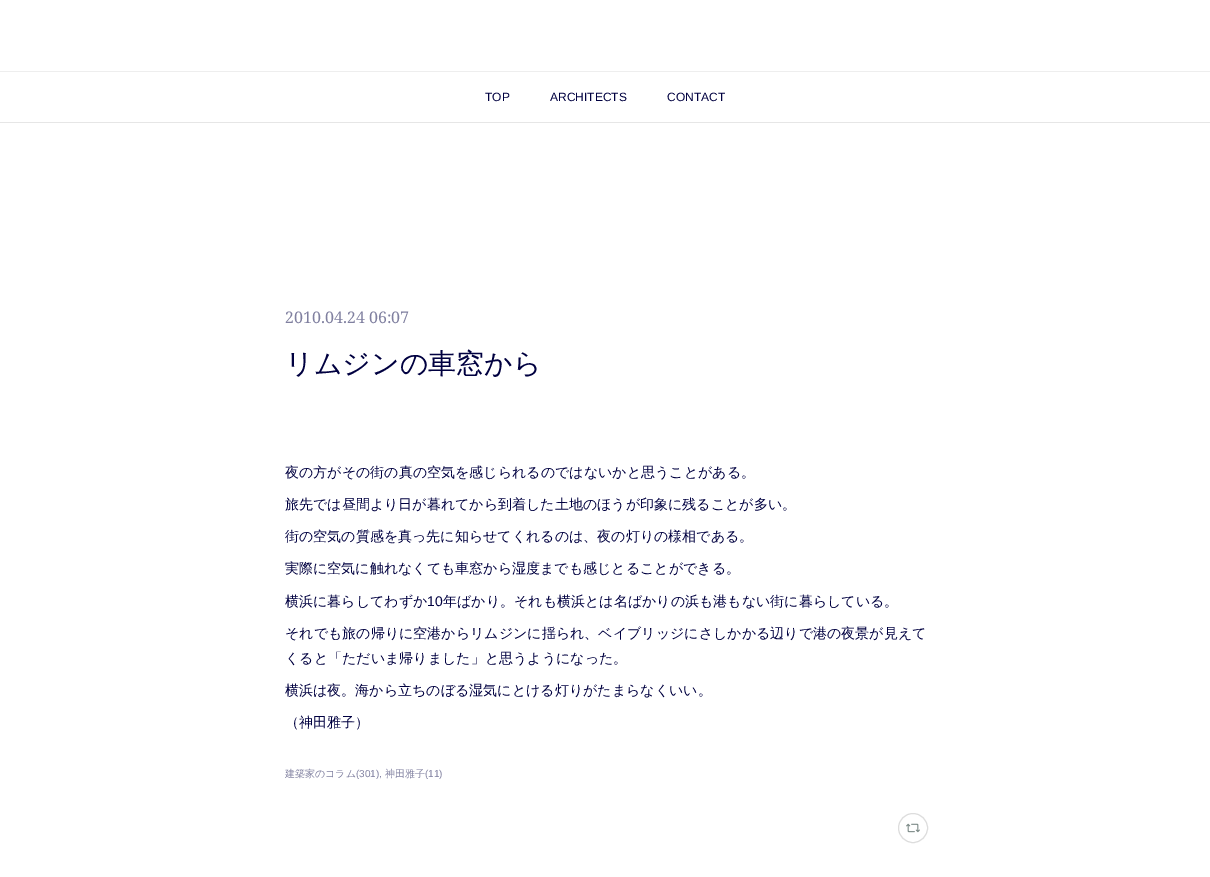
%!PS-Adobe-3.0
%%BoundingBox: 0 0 1210 877
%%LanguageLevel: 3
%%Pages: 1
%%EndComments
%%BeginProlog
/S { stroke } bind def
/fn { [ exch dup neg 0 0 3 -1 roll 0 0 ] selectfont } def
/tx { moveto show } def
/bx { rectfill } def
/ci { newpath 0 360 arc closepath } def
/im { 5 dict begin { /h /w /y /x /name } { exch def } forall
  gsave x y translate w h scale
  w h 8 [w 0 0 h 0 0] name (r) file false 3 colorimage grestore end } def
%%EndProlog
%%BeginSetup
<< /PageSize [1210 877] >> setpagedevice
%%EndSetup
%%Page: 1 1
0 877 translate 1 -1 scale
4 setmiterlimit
1 setgray
0 0 1210 877 bx
0.933 setgray
0 71 1210 1 bx
0.902 setgray
0 122 1210 1 bx
/LiberationSans-Regular 12 fn
0 0 0.251 setrgbcolor
(TOP) 485 101 tx
(ARCHITECTS) 550 101 tx
(CONTACT) 667 101 tx
/NotoSerif-Regular 16 fn
0.502 0.502 0.627 setrgbcolor
(2010.04.24 06:07) 285 323 tx
/WenQuanYiZenHei-Medium 28 fn
0 0 0.251 setrgbcolor
(リムジンの車窓から) 285 373 tx
/WenQuanYiZenHei-Medium 14 fn
(夜の方がその街の真の空気を感じられるのではないかと思うことがある。) 285 477 tx
(旅先では昼間より日が暮れてから到着した土地のほうが印象に残ることが多い。) 285 509 tx
(街の空気の質感を真っ先に知らせてくれるのは、夜の灯りの様相である。) 285 541 tx
(実際に空気に触れなくても車窓から湿度までも感じとることができる。) 285 573 tx
(横浜に暮らしてわずか) 285 606 tx
/LiberationSans-Regular 14 fn
(10) 427 606 tx
/WenQuanYiZenHei-Medium 14 fn
(年ばかり。それも横浜とは名ばかりの浜も港もない街に暮らしている。) 443 606 tx
(それでも旅の帰りに空港からリムジンに揺られ、ベイブリッジにさしかかる辺りで港の夜景が見えて) 285 638 tx
(くると「ただいま帰りました」と思うようになった。) 285 663 tx
(横浜は夜。海から立ちのぼる湿気にとける灯りがたまらなくいい。) 285 695 tx
(（神田雅子）) 285 727 tx
/WenQuanYiZenHei-Medium 10 fn
0.502 0.502 0.627 setrgbcolor
(建築家のコラム) 285 777 tx
/LiberationSans-Regular 10 fn
(\(301\),) 356 777 tx
/WenQuanYiZenHei-Medium 10 fn
(神田雅子) 385 777 tx
/LiberationSans-Regular 10 fn
(\(11\)) 425 777 tx
0.867 setgray
913 828 14.5 ci S
(image0.raw) 906 823 14 10 im
showpage
%%EOF
